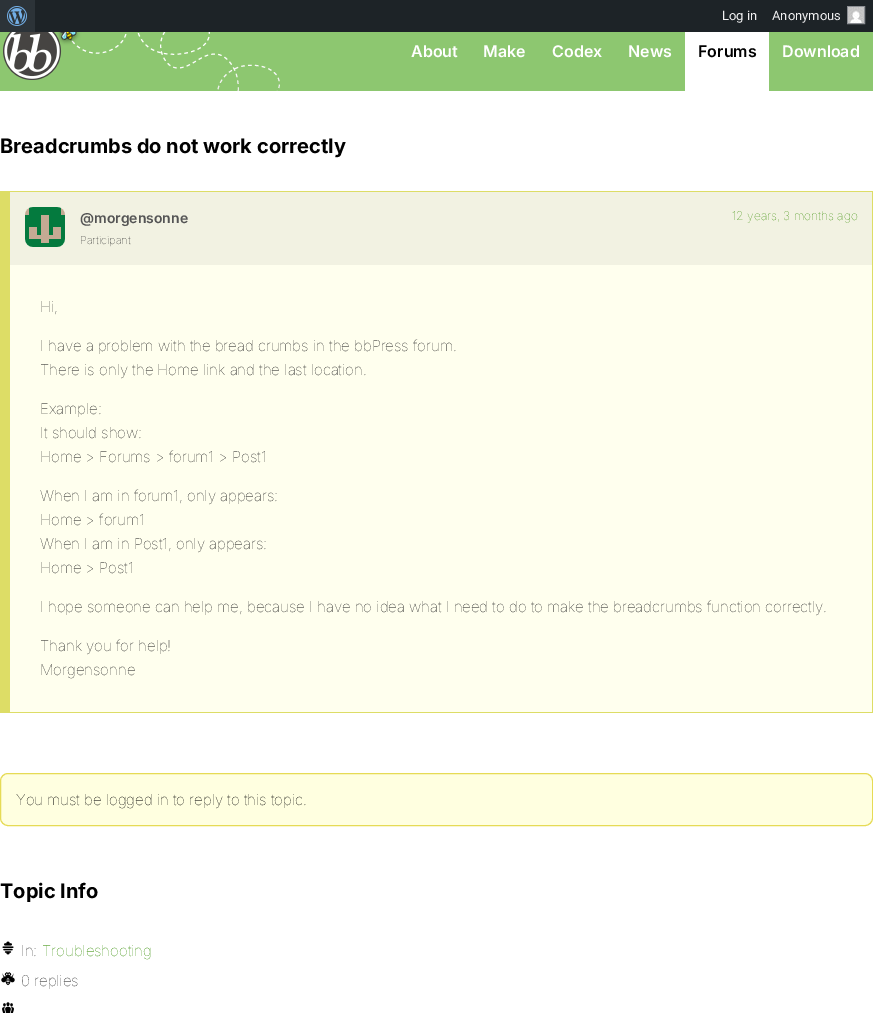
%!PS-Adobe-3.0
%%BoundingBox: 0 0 873 1013
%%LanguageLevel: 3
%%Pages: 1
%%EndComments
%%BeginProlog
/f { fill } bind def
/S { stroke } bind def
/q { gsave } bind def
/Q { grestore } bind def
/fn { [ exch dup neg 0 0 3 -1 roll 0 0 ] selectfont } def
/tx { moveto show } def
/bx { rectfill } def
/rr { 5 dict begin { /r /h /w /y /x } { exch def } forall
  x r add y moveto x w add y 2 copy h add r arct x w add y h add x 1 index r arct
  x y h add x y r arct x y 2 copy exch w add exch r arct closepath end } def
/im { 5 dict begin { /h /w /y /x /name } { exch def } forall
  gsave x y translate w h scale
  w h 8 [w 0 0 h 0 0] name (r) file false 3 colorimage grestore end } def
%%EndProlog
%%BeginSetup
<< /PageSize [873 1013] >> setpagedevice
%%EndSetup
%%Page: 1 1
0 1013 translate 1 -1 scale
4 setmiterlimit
1 setgray
0 0 873 1013 bx
0.114 0.137 0.153 setrgbcolor
35 0 838 32 bx
0.173 0.2 0.22 setrgbcolor
0 0 35 32 bx
(image0.raw) 7 6 20 20 im
/Roboto-Regular 13 fn
0.941 0.941 0.945 setrgbcolor
(Log in) 722 20 tx
0.549 0.561 0.58 setrgbcolor
847.5 6.5 17 17 rectstroke
0.941 0.941 0.945 setrgbcolor
(Anonymous) 772 20 tx
(image1.raw) 848 7 16 16 im
0.553 0.78 0.439 setrgbcolor
0 32 873 59 bx
(image2.raw) 56 32 224 59 im
(image3.raw) 3 32 62 48 im
/Inter-SemiBold 16 fn
1 setgray
(About) 411 57 tx
(Make) 483 57 tx
(Codex) 552 57 tx
(News) 628 57 tx
685 32 84 59 bx
0 setgray
(Forums) 698 57 tx
1 setgray
(Download) 782 57 tx
/Inter-Bold 20 fn
0 setgray
(Breadcrumbs do not work correctly) 0 153 tx
0.867 0.867 0.4 setrgbcolor
10 191 863 1 bx
872 191 1 522 bx
10 712 863 1 bx
0 191 10 522 bx
1 1 0.933 setrgbcolor
10 265 862 447 bx
0.949 0.949 0.886 setrgbcolor
10 192 862 73 bx
(image4.raw) 25 207 40 40 im
/Inter-SemiBold 14 fn
0.333 setgray
(@morgensonne) 80 223 tx
/Inter-Thin 11 fn
0.133 setgray
(Participant) 80 244 tx
/Inter-Thin 12 fn
0.196 0.549 0 setrgbcolor
(12 years, 3 months ago) 732 220 tx
/Inter-Thin 15 fn
0.133 setgray
(Hi,) 40 312 tx
(I have a problem with the bread crumbs in the bbPress forum.) 40 351 tx
(There is only the Home link and the last location.) 40 375 tx
(Example:) 40 414 tx
(It should show:) 40 438 tx
(Home > Forums > forum1 > Post1) 40 462 tx
(When I am in forum1, only appears:) 40 501 tx
(Home > forum1) 40 525 tx
(When I am in Post1, only appears:) 40 549 tx
(Home > Post1) 40 573 tx
(I hope someone can help me, because I have no idea what I need to do to make the breadcrumbs function correctly.) 40 612 tx
(Thank you for help!) 40 651 tx
(Morgensonne) 40 675 tx
1 1 0.878 setrgbcolor
0.5 773.5 872 52 7.5 rr q f Q
0.902 0.859 0.333 setrgbcolor
S
0 setgray
(You must be logged in to reply to this topic.) 16 805 tx
/Inter-Bold 20 fn
(Topic Info) 0 898 tx
(image5.raw) 2 941 12 14 im
/Inter-Thin 15 fn
0.133 setgray
(In:) 21 956 tx
0.196 0.549 0 setrgbcolor
(Troubleshooting) 42 956 tx
(image6.raw) 1 972 14 14 im
0.133 setgray
(0 replies) 21 986 tx
(image7.raw) 2 1002 12 11 im
showpage
%%EOF
